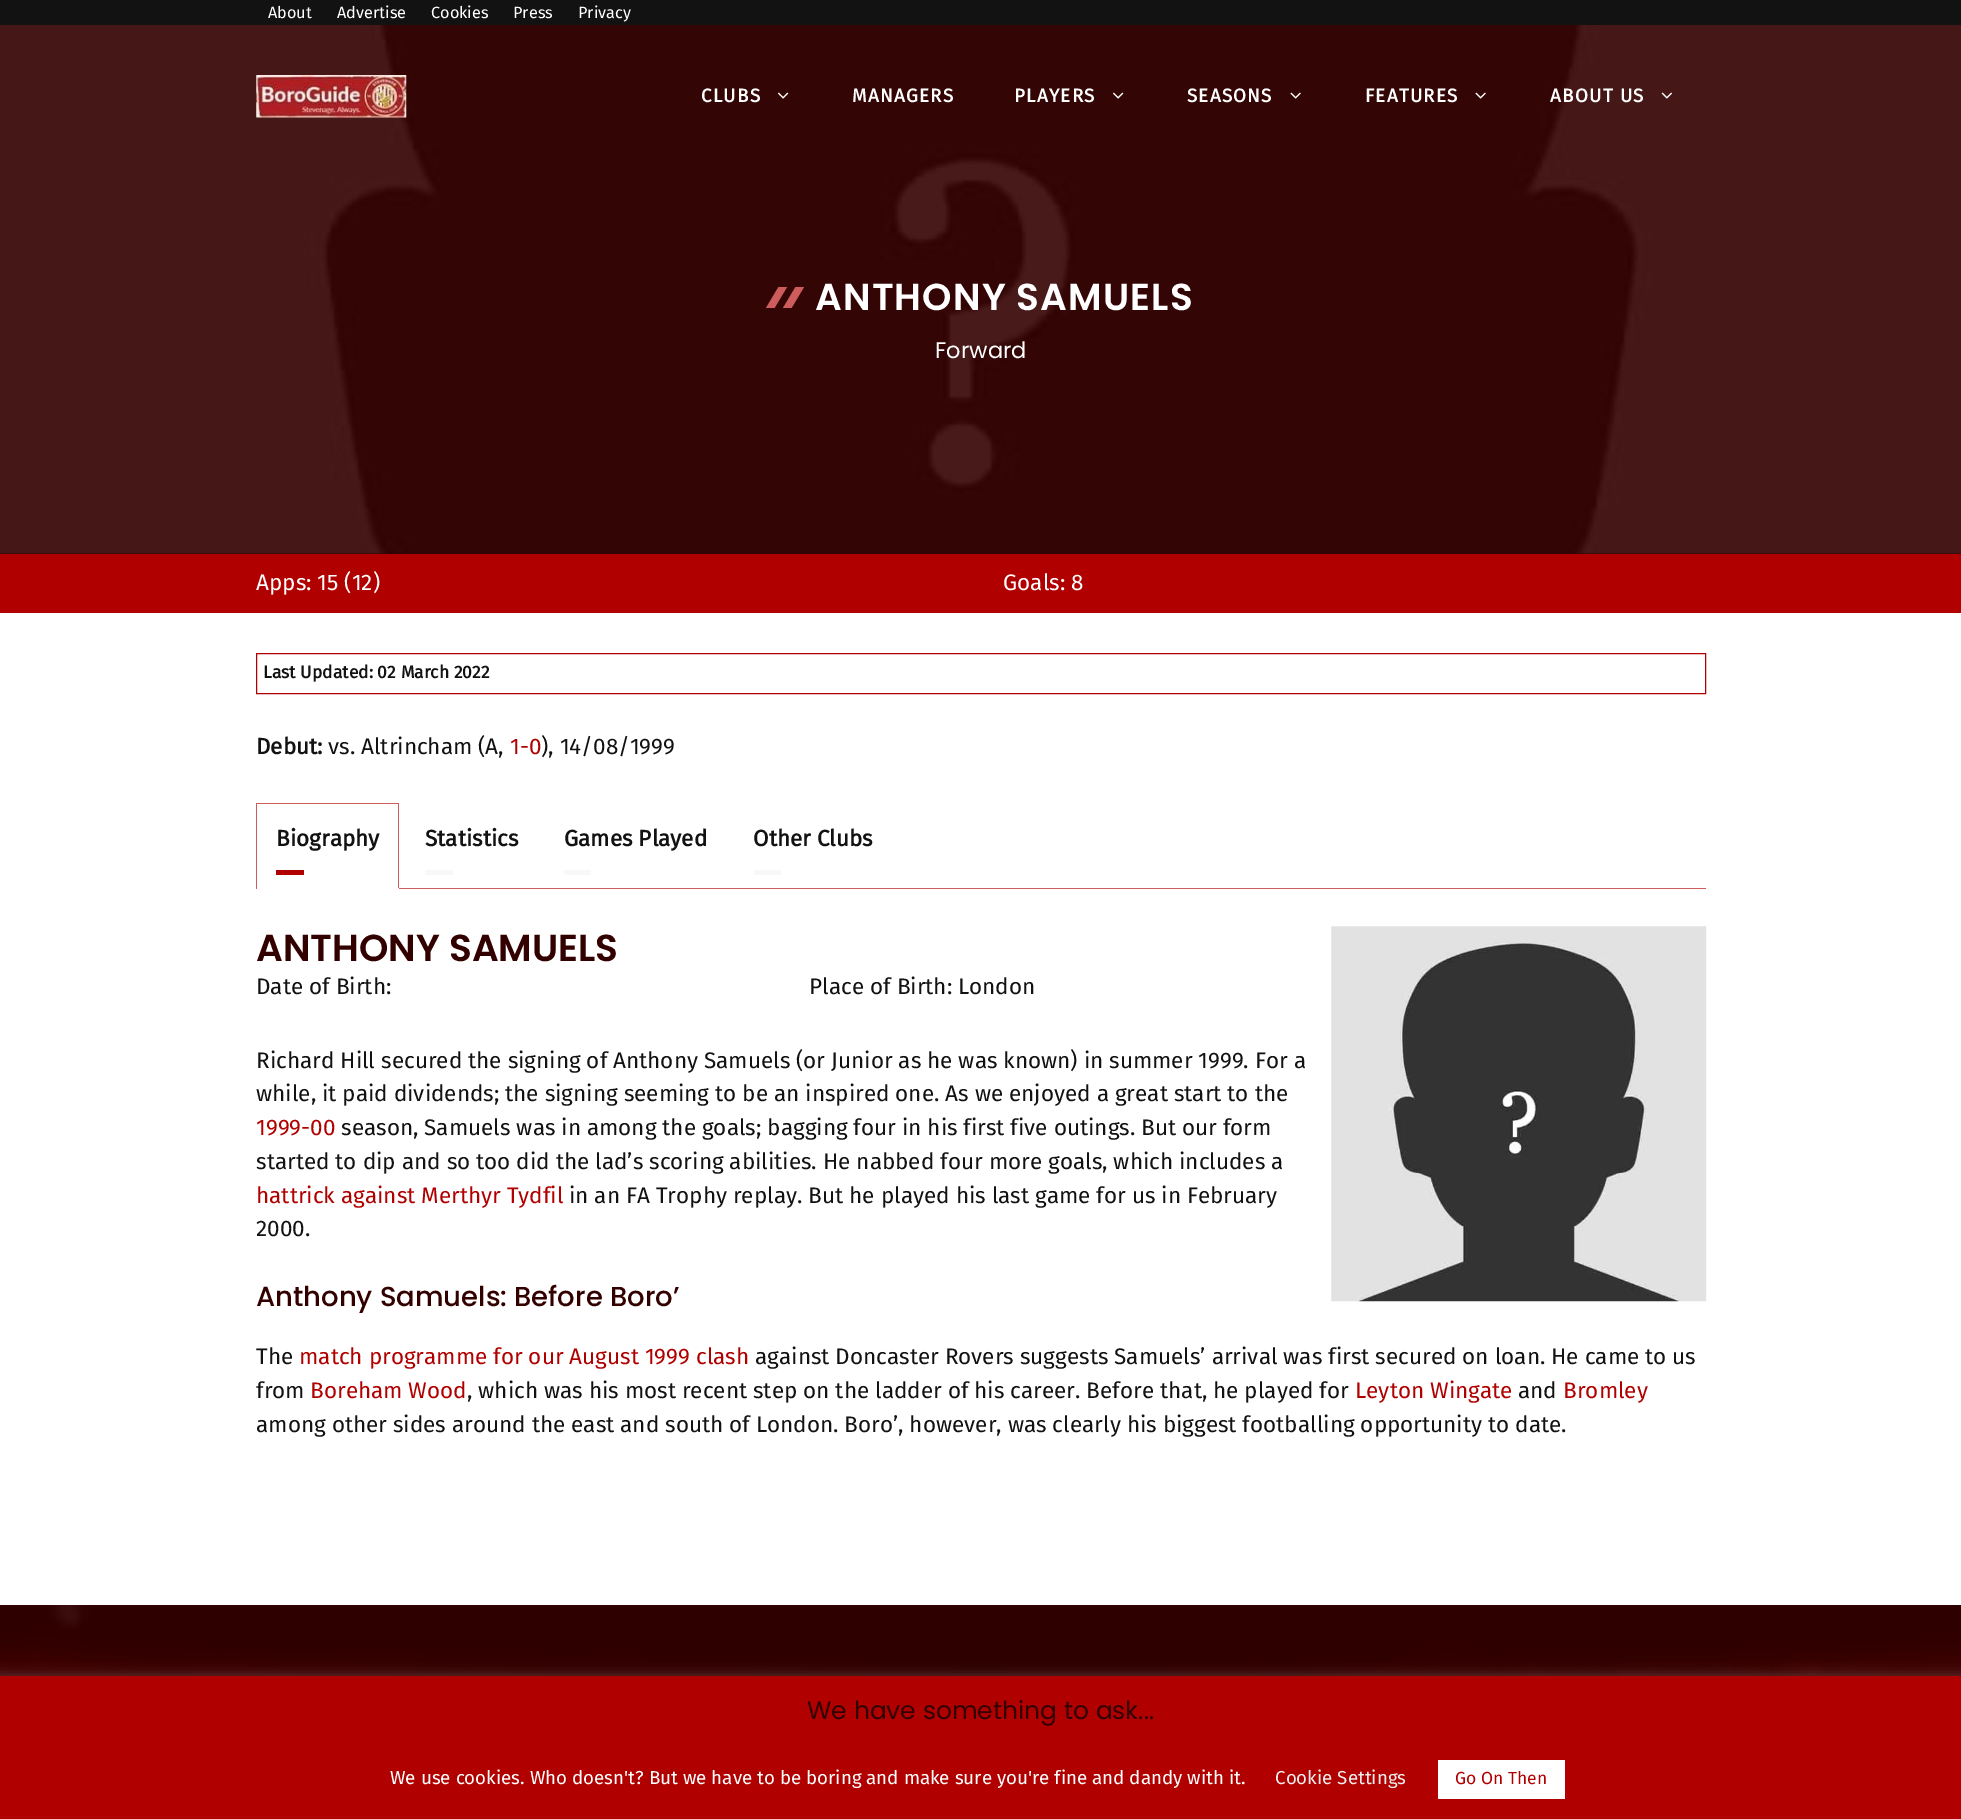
%!PS-Adobe-3.0
%%BoundingBox: 0 0 1961 1819
%%LanguageLevel: 3
%%Pages: 1
%%EndComments
%%BeginProlog
/m { moveto } bind def
/l { lineto } bind def
/h { closepath } bind def
/f { fill } bind def
/fn { [ exch dup neg 0 0 3 -1 roll 0 0 ] selectfont } def
/tx { moveto show } def
/bx { rectfill } def
/al { dup .setfillconstantalpha .setstrokeconstantalpha } def
/rr { 5 dict begin { /r /h /w /y /x } { exch def } forall
  x r add y moveto x w add y 2 copy h add r arct x w add y h add x 1 index r arct
  x y h add x y r arct x y 2 copy exch w add exch r arct closepath end } def
/sh { 12 dict begin { /a /b /q /h /w /y /x } { exch def } forall gsave /was 0 def
  9 -2 -9 { dup b mul 4 div /e exch def 1 sub .425 mul 2.718 exch exp 1 add a .99 .min exch div /now exch def
    1 1 now sub 1 was sub div sub al /was now def
    w h .min e 2 mul add 0 gt { x e sub y e sub w e 2 mul add h e 2 mul add
      q e add b .6 mul add w h .min 2 div e add .min 0 .max rr fill } if } for grestore end } def
/im { 5 dict begin { /h /w /y /x /name } { exch def } forall
  gsave x y translate w h scale
  w h 8 [w 0 0 h 0 0] name (r) file false 3 colorimage grestore end } def
%%EndProlog
%%BeginSetup
<< /PageSize [1961 1819] /PageUsesTransparency true >> setpagedevice
%%EndSetup
%%Page: 1 1
0 .pushpdf14devicefilter
0 1819 translate 1 -1 scale
4 setmiterlimit
1 setgray
0 0 1961 1819 bx
0.071 setgray
0 0 1961 25 bx
/FiraSans-Regular 16.25 fn
1 setgray
(About) 268 18 tx
(Advertise) 337 18 tx
(Cookies) 431 18 tx
(Press) 513 18 tx
(Privacy) 578 18 tx
0.2 0 0 setrgbcolor
0 25 1961 529 bx
(image4.raw) 0 25 1961 529 im
(image0.raw) 256 75 151 43 im
/FiraSans-Bold 18.75 fn
1 setgray
701 102 m 1.25 0 (CLUBS) ashow
(image1.raw) 778 92 11 7 im
852 102 m 1.25 0 (MANAGERS) ashow
1014 102 m 1.25 0 (PLAYERS) ashow
(image1.raw) 1113 92 11 7 im
1187 102 m 1.25 0 (SEASONS) ashow
(image2.raw) 1290 92 11 7 im
1365 102 m 1.25 0 (FEATURES) ashow
(image2.raw) 1475 92 11 7 im
1550 102 m 1.25 0 (ABOUT US) ashow
(image3.raw) 1661 92 11 7 im
0.804 0.361 0.361 setrgbcolor
774.5 308 m 766 308 l 778.5 287 l 787 287 l h f
791.5 308 m 783 308 l 795.5 287 l 804 287 l h f
/Poppins-SemiBold 37.5 fn
1 setgray
815 310 m 1.1 0 (ANTHONY SAMUELS) ashow
/Poppins-Regular 22.5 fn
(Forward) 935 358 tx
0.69 0 0 setrgbcolor
0 554 1961 59 bx
/FiraSans-Regular 22.5 fn
1 setgray
(Apps: 15 \(12\)) 256 590 tx
(Goals: 8) 1003 590 tx
0.69 0 0 setrgbcolor
256.5 653.5 1449 40 rectstroke
/FiraSans-Bold 17.5 fn
0.071 setgray
(Last Updated: 02 March 2022) 263 678 tx
/FiraSans-Bold 22.5 fn
(Debut:) 256 754 tx
/FiraSans-Regular 22.5 fn
(vs. Altrincham \(A,) 328 754 tx
0.69 0 0 setrgbcolor
(1-0) 510 754 tx
0.071 setgray
(\), 14/08/1999) 541 754 tx
0.804 0.361 0.361 setrgbcolor
256 803 143 1 bx
398 803 1 86 bx
1 setgray
398 888 1 1 bx
0.804 0.361 0.361 setrgbcolor
256 803 1 86 bx
/FiraSans-Bold 22.5 fn
0.071 setgray
(Biography) 276 846 tx
0.69 0 0 setrgbcolor
276 870 28 5 bx
0.071 setgray
(Statistics) 425 846 tx
0.969 0.973 0.976 setrgbcolor
425 870 28 5 bx
0.071 setgray
(Games Played) 564 846 tx
0.969 0.973 0.976 setrgbcolor
564 870 27 5 bx
0.071 setgray
(Other Clubs) 753 846 tx
0.969 0.973 0.976 setrgbcolor
754 870 27 5 bx
0.804 0.361 0.361 setrgbcolor
399 888 1307 1 bx
(image5.raw) 1331 926 376 376 im
/Poppins-SemiBold 37.5 fn
0.2 0 0 setrgbcolor
(ANTHONY SAMUELS) 256 961 tx
/FiraSans-Regular 22.5 fn
0.071 setgray
(Date of Birth:) 256 994 tx
(Place of Birth: London) 809 994 tx
(Richard Hill secured the signing of Anthony Samuels \(or Junior as he was known\) in summer 1999. For a) 256 1068 tx
(while, it paid dividends; the signing seeming to be an inspired one. As we enjoyed a great start to the) 256 1101 tx
0.69 0 0 setrgbcolor
(1999-00) 256 1135 tx
0.071 setgray
(season, Samuels was in among the goals; bagging four in his first five outings. But our form) 341 1135 tx
(started to dip and so too did the lad’s scoring abilities. He nabbed four more goals, which includes a) 256 1169 tx
0.69 0 0 setrgbcolor
(hattrick against Merthyr Tydfil) 256 1203 tx
0.071 setgray
(in an FA Trophy replay. But he played his last game for us in February) 569 1203 tx
(2000.) 256 1236 tx
/Poppins-Medium 27.5 fn
0.2 0 0 setrgbcolor
(Anthony Samuels: Before Boro’) 256 1306 tx
/FiraSans-Regular 22.5 fn
0.071 setgray
(The) 256 1364 tx
0.69 0 0 setrgbcolor
(match programme for our August 1999 clash) 299 1364 tx
0.071 setgray
(against Doncaster Rovers suggests Samuels’ arrival was first secured on loan. He came to us) 755 1364 tx
(from) 256 1398 tx
0.69 0 0 setrgbcolor
(Boreham Wood) 310 1398 tx
0.071 setgray
(, which was his most recent step on the ladder of his career. Before that, he played for) 467 1398 tx
0.69 0 0 setrgbcolor
(Leyton Wingate) 1355 1398 tx
0.071 setgray
(and) 1518 1398 tx
0.69 0 0 setrgbcolor
(Bromley) 1563 1398 tx
0.071 setgray
(among other sides around the east and south of London. Boro’, however, was clearly his biggest footballing opportunity to date.) 256 1432 tx
0.2 0 0 setrgbcolor
0 1605 1961 71 bx
(image6.raw) 0 1605 1961 71 im
0.675 0.671 0.671 setrgbcolor
0 1675 1961 144 0 6 0.3 sh
0.69 0 0 setrgbcolor
0 1676 1961 143 bx
/Poppins-Regular 25 fn
0.2 0 0 setrgbcolor
(We have something to ask...) 807 1719 tx
/FiraSans-Regular 18.75 fn
1 setgray
(We use cookies. Who doesn't? But we have to be boring and make sure you're fine and dandy with it.) 390 1784 tx
0.933 setgray
(Cookie Settings) 1275 1784 tx
1 setgray
1438 1760 127 39 bx
/FiraSans-Regular 17.5 fn
0.69 0 0 setrgbcolor
(Go On Then) 1455 1784 tx
.poppdf14devicefilter showpage
%%EOF
